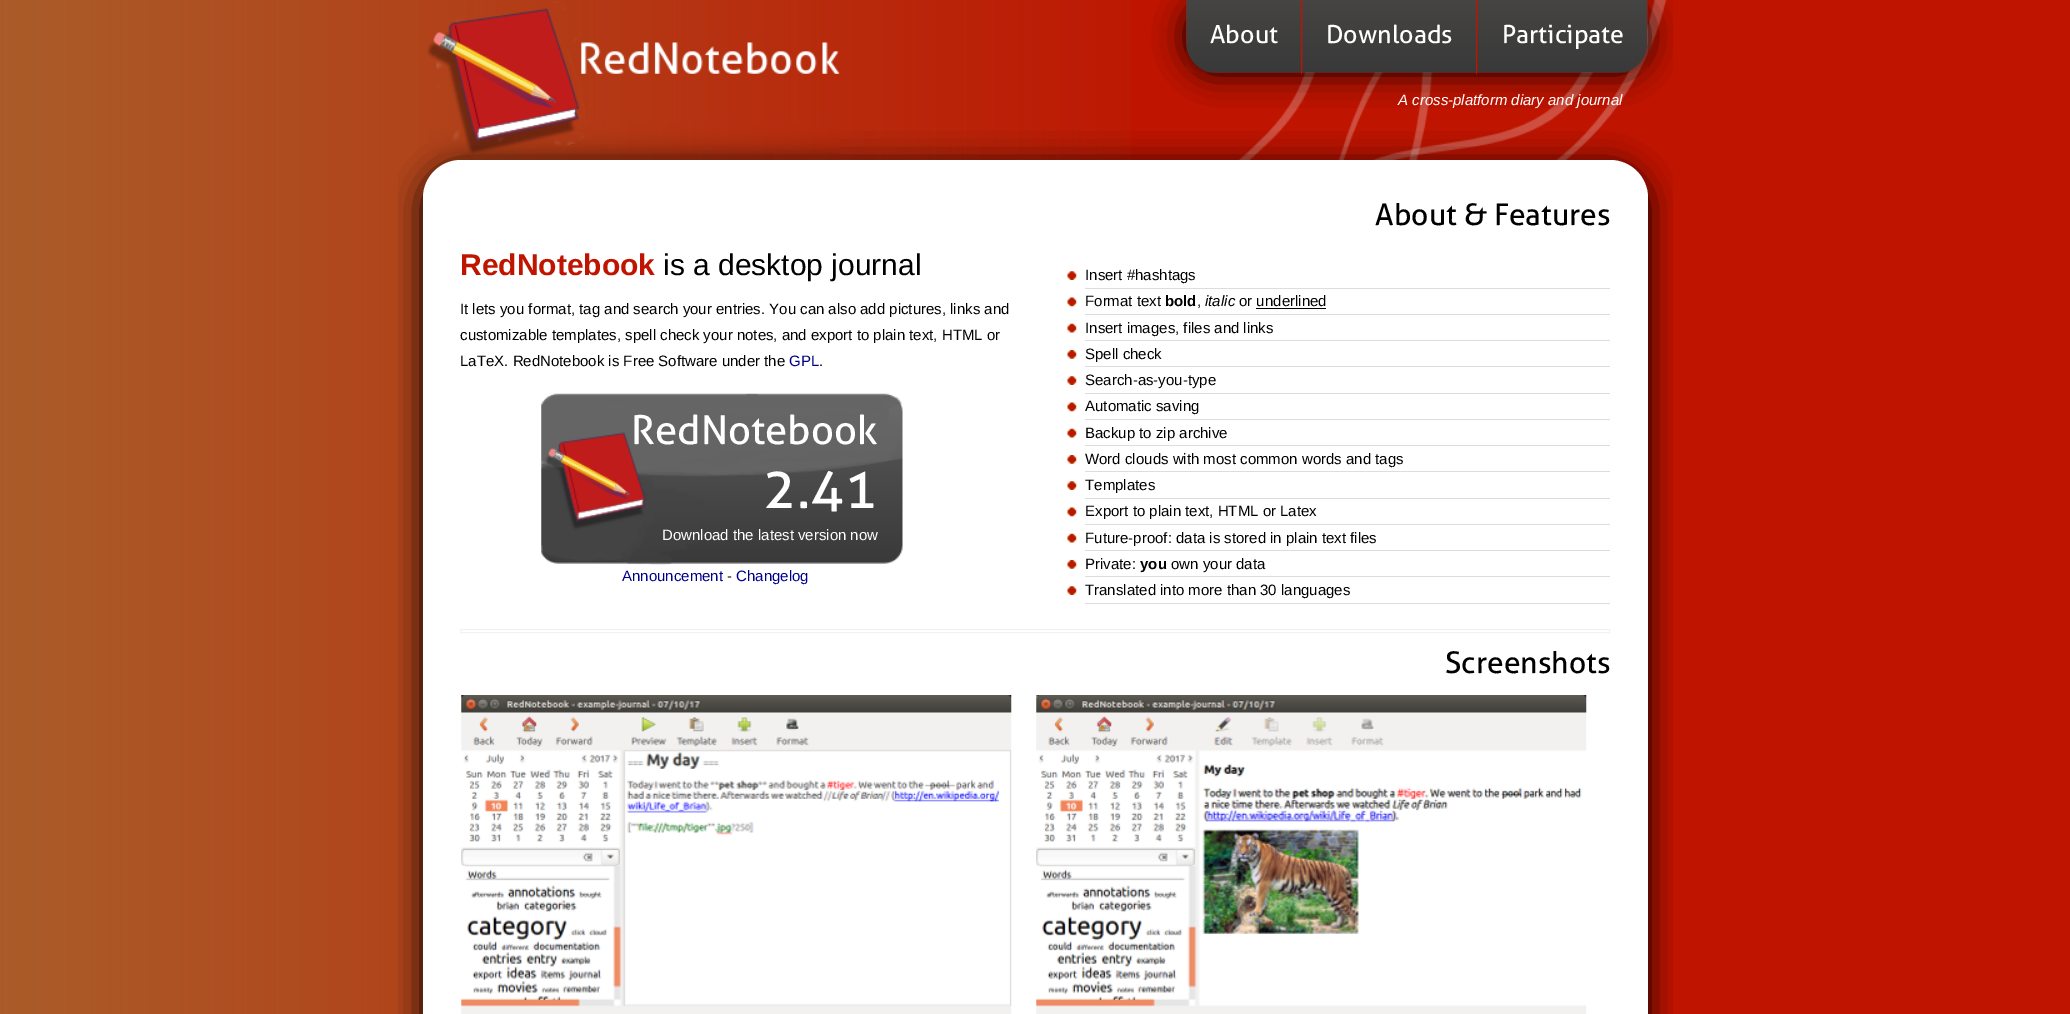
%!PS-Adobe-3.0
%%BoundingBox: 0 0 2070 1014
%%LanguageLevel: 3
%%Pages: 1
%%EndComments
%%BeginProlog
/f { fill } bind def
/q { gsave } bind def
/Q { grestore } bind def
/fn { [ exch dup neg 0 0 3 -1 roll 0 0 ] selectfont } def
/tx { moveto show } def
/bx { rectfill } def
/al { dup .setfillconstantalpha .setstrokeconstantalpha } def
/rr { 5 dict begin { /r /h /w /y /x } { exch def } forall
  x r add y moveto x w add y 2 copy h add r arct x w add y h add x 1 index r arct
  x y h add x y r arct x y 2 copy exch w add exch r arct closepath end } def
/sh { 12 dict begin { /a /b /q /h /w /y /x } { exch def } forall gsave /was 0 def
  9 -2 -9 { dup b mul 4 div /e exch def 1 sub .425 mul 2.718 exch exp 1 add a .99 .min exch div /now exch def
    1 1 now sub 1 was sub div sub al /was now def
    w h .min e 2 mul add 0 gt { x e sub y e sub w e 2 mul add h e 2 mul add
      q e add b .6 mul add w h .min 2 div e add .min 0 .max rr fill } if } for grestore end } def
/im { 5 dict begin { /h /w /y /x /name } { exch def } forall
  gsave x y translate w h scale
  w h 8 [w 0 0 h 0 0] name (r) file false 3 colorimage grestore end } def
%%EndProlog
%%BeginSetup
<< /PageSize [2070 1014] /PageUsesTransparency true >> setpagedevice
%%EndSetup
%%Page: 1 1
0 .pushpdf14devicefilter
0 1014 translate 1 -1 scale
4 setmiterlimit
0.745 0.078 0 setrgbcolor
0 0 2070 1014 bx
(image0.raw) 0 0 1131 1014 im
(image1.raw) 1238 0 429 160 im
q
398 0 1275 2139 rectclip
0 setgray
423 166 1225 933 38 15.5 1 sh
Q
(image2.raw) 427 1 413 153 im
q
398 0 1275 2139 rectclip
0 setgray
1186 0 462 73 31 15.5 1 sh
Q
(image3.raw) 1186 0 117 73 im
/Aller-Regular 25 fn
1 setgray
(About) 1210 43 tx
0.745 0.078 0 setrgbcolor
1301 0 1 74 bx
(image4.raw) 1302 0 176 73 im
1 setgray
(Downloads) 1326 43 tx
0.745 0.078 0 setrgbcolor
1476 0 1 74 bx
(image5.raw) 1477 0 171 73 im
1 setgray
(Participate) 1502 43 tx
/LiberationSans-Italic 15 fn
(A cross-platform diary and journal) 1398 105 tx
423 160 1225 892 38 rr f
/Aller-Regular 30 fn
0 setgray
(About & Features) 1375 225 tx
/LiberationSans-Bold 30 fn
0.745 0.078 0 setrgbcolor
(RedNotebook) 460 275 tx
/LiberationSans-Regular 30 fn
0 setgray
(is a desktop journal) 663 275 tx
0.867 setgray
1085 288 525 1 bx
(image6.raw) 1067 271 10 9 im
/LiberationSans-Regular 15 fn
0 setgray
(Insert #hashtags) 1085 280 tx
0.867 setgray
1085 314 525 1 bx
(image7.raw) 1067 297 10 10 im
0 setgray
(Format text) 1085 306 tx
/LiberationSans-Bold 15 fn
(bold) 1165 306 tx
/LiberationSans-Regular 15 fn
(,) 1197 306 tx
/LiberationSans-Italic 15 fn
(italic) 1205 306 tx
/LiberationSans-Regular 15 fn
(or underlined) 1239 306 tx
1256 308 70 1 bx
0.867 setgray
1085 340 525 1 bx
(image8.raw) 1067 323 10 10 im
0 setgray
(Insert images, files and links) 1085 333 tx
0.867 setgray
1085 366 525 1 bx
(image9.raw) 1067 350 10 9 im
0 setgray
(Spell check) 1085 359 tx
0.867 setgray
1085 393 525 1 bx
(image6.raw) 1067 376 10 9 im
0 setgray
(Search-as-you-type) 1085 385 tx
0.867 setgray
1085 419 525 1 bx
(image7.raw) 1067 402 10 10 im
0 setgray
(Automatic saving) 1085 411 tx
0.867 setgray
1085 445 525 1 bx
(image8.raw) 1067 428 10 10 im
0 setgray
(Backup to zip archive) 1085 438 tx
0.867 setgray
1085 471 525 1 bx
(image9.raw) 1067 455 10 9 im
0 setgray
(Word clouds with most common words and tags) 1085 464 tx
0.867 setgray
1085 498 525 1 bx
(image6.raw) 1067 481 10 9 im
0 setgray
(Templates) 1085 490 tx
0.867 setgray
1085 524 525 1 bx
(image7.raw) 1067 507 10 10 im
0 setgray
(Export to plain text, HTML or Latex) 1085 516 tx
0.867 setgray
1085 550 525 1 bx
(image8.raw) 1067 533 10 10 im
0 setgray
(Future-proof: data is stored in plain text files) 1085 543 tx
0.867 setgray
1085 576 525 1 bx
(image9.raw) 1067 560 10 9 im
0 setgray
(Private:) 1085 569 tx
/LiberationSans-Bold 15 fn
(you) 1140 569 tx
/LiberationSans-Regular 15 fn
(own your data) 1171 569 tx
0.867 setgray
1085 603 525 1 bx
(image10.raw) 1067 586 10 9 im
0 setgray
(Translated into more than 30 languages) 1085 595 tx
(It lets you format, tag and search your entries. You can also add pictures, links and) 460 314 tx
(customizable templates, spell check your notes, and export to plain text, HTML or) 460 340 tx
(LaTeX. RedNotebook is Free Software under the) 460 366 tx
0 0 0.537 setrgbcolor
(GPL) 789 366 tx
0 setgray
(.) 819 366 tx
(image11.raw) 541 393 362 172 im
/Aller-Regular 40 fn
1 setgray
(RedNotebook) 631 444 tx
/Aller-Regular 56 fn
(2.41) 763 508 tx
/LiberationSans-Regular 15 fn
(Download the latest version now) 662 540 tx
0 0 0.537 setrgbcolor
(Announcement) 622 581 tx
0 setgray
(-) 727 581 tx
0 0 0.537 setrgbcolor
(Changelog) 736 581 tx
0.949 setgray
460.5 629.5 1149 3 rectstroke
/Aller-Regular 30 fn
0 setgray
(Screenshots) 1445 673 tx
(image12.raw) 461 695 551 319 im
(image13.raw) 1036 695 551 319 im
.poppdf14devicefilter showpage
%%EOF
